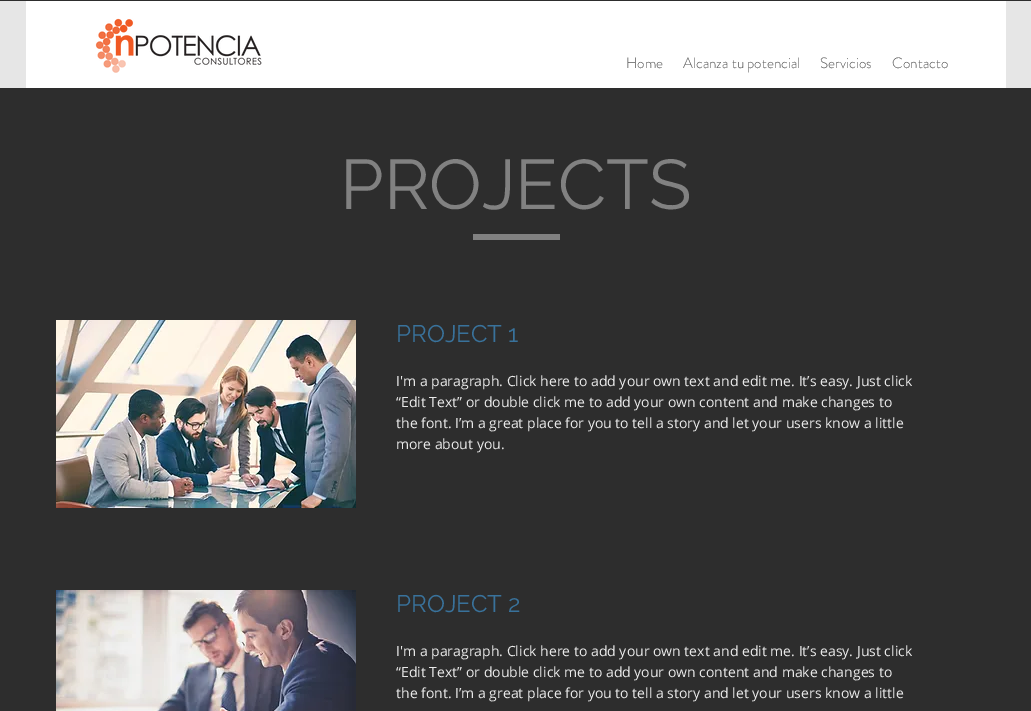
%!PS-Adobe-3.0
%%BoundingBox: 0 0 1031 711
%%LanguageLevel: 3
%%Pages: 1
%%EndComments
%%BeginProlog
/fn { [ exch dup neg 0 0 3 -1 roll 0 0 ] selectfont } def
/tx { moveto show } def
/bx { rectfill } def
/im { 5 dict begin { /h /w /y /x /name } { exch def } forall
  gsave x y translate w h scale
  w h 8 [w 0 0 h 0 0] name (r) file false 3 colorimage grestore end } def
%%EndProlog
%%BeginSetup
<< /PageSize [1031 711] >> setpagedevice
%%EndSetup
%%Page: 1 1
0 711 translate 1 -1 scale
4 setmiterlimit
0.176 setgray
0 0 1031 711 bx
0.902 setgray
0 1 1031 87 bx
1 setgray
26 1 980 87 bx
(image0.raw) 95 18 167 55 im
/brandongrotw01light-Light 15 fn
0.341 setgray
(Home) 626 68 tx
(Alcanza tu potencial) 683 68 tx
(Servicios) 820 68 tx
(Contacto) 892 68 tx
/Raleway-Regular 70 fn
0.506 setgray
(PROJECTS) 340 209 tx
473 234 87 6 bx
(image1.raw) 56 320 300 188 im
/Raleway-Regular 24 fn
0.224 0.447 0.608 setrgbcolor
(PROJECT 1) 396 342 tx
/OpenSans-Regular 14 fn
0.91 setgray
(I'm a paragraph. Click here to add your own text and edit me. It’s easy. Just click) 396 386 tx
(“Edit Text” or double click me to add your own content and make changes to) 396 407 tx
(the font. I’m a great place for you to tell a story and let your users know a little) 396 428 tx
(more about you.) 396 449 tx
(image2.raw) 56 590 300 121 im
/Raleway-Regular 24 fn
0.224 0.447 0.608 setrgbcolor
(PROJECT 2) 396 612 tx
/OpenSans-Regular 14 fn
0.91 setgray
(I'm a paragraph. Click here to add your own text and edit me. It’s easy. Just click) 396 656 tx
(“Edit Text” or double click me to add your own content and make changes to) 396 677 tx
(the font. I’m a great place for you to tell a story and let your users know a little) 396 698 tx
showpage
%%EOF
